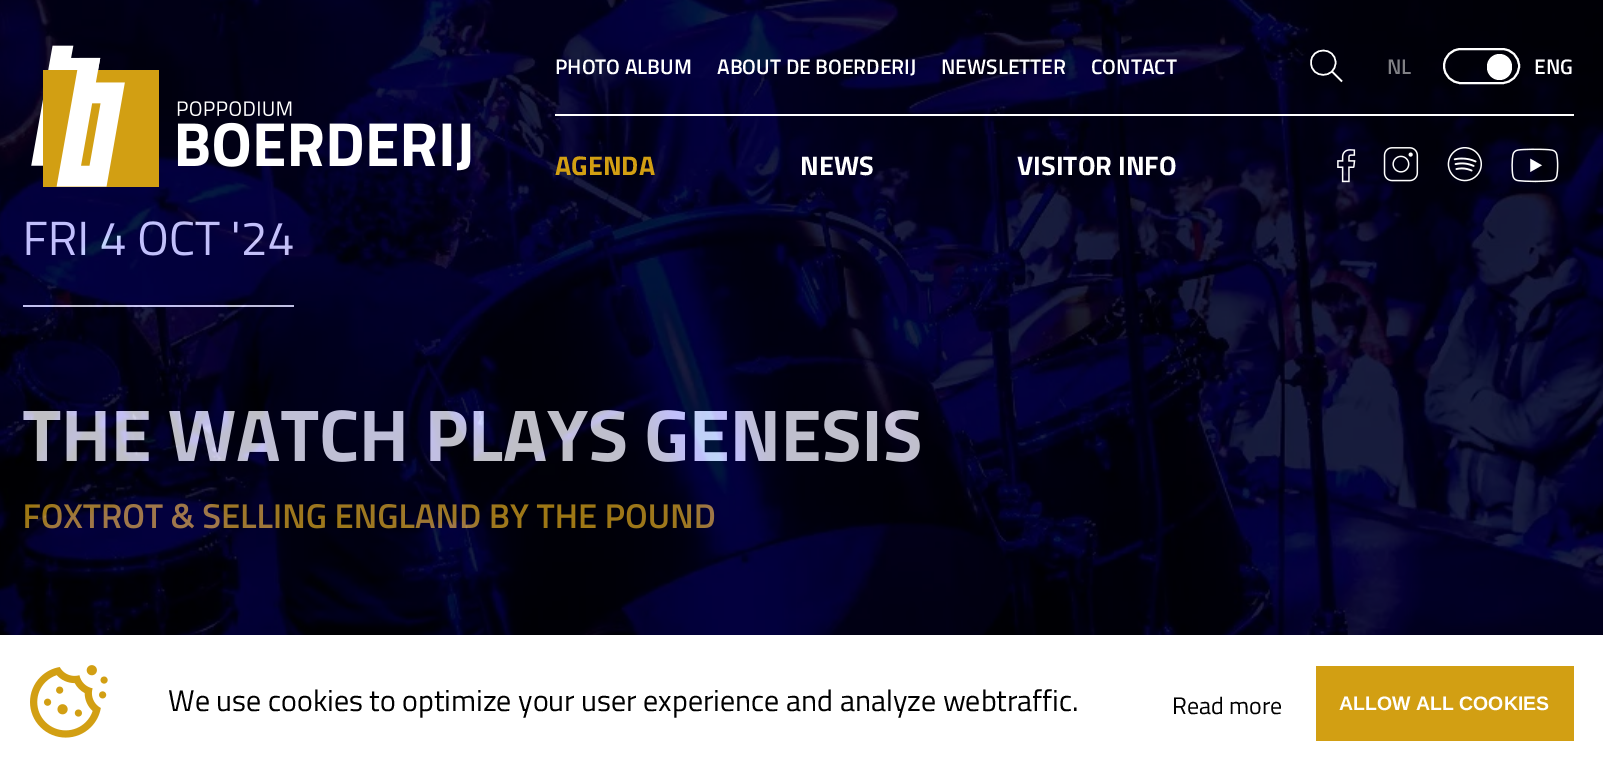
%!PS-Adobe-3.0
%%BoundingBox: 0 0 1603 767
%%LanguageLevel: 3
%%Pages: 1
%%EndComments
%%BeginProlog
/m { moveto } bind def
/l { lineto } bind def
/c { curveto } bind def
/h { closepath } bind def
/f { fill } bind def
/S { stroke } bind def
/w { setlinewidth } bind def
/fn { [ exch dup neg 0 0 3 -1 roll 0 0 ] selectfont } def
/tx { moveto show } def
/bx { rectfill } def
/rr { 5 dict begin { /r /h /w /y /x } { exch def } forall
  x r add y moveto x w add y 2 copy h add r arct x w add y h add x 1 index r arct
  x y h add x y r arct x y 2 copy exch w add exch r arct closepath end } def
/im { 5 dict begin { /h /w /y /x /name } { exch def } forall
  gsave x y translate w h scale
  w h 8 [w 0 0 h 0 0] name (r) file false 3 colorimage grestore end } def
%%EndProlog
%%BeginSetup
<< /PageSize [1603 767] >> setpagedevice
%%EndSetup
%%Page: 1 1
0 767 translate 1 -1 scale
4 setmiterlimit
0 setgray
0 0 1603 767 bx
1 setgray
23 305 271 2 bx
/TitilliumWeb-Regular 48 fn
(FRI 4 OCT '24) 23 255 tx
/TitilliumWeb-Bold 73.5 fn
(THE WATCH PLAYS GENESIS) 23 461 tx
/TitilliumWeb-SemiBold 34.5 fn
0.824 0.624 0.075 setrgbcolor
(FOXTROT & SELLING ENGLAND BY THE POUND) 23 528 tx
(image5.raw) 0 0 1603 635 im
(image0.raw) 31 45 440 142 im
1 setgray
555 114 1019 2 bx
/TitilliumWeb-SemiBold 21 fn
(PHOTO ALBUM) 555 74 tx
(ABOUT DE BOERDERIJ) 717 74 tx
(NEWSLETTER) 941 74 tx
(CONTACT) 1091 74 tx
1.5 w
1311 62.5 m 1311 46.5 1335.5 46.5 1335.5 62.5 c 1335.5 79 1311 79 1311 62.5 c h 1332 71.5 m 1342 81.5 l S
0.502 0.502 0.522 setrgbcolor
(NL) 1387 74 tx
1 setgray
2 w
1444 49 75 34 17 rr S
1487 54 25 26 12.5 rr f
(ENG) 1534 74 tx
/TitilliumWeb-Bold 27 fn
0.824 0.624 0.075 setrgbcolor
(AGENDA) 555 175 tx
1 setgray
(NEWS) 800 175 tx
(VISITOR INFO) 1017 175 tx
(image1.raw) 1337 149 19 34 im
(image2.raw) 1383 147 36 35 im
(image3.raw) 1447 147 35 35 im
(image4.raw) 1511 148 48 35 im
0 635 1603 132 bx
(image6.raw) 30 665 78 73 im
/TitilliumWeb-Regular 30 fn
0 setgray
(We use cookies to optimize your user experience and analyze webtraffic.) 168 711 tx
/TitilliumWeb-Regular 24 fn
(Read more) 1172 714 tx
0.824 0.624 0.075 setrgbcolor
1316 666 258 75 bx
/LiberationSans-Bold 19.5 fn
1 setgray
(ALLOW ALL COOKIES) 1339 710 tx
showpage
%%EOF
